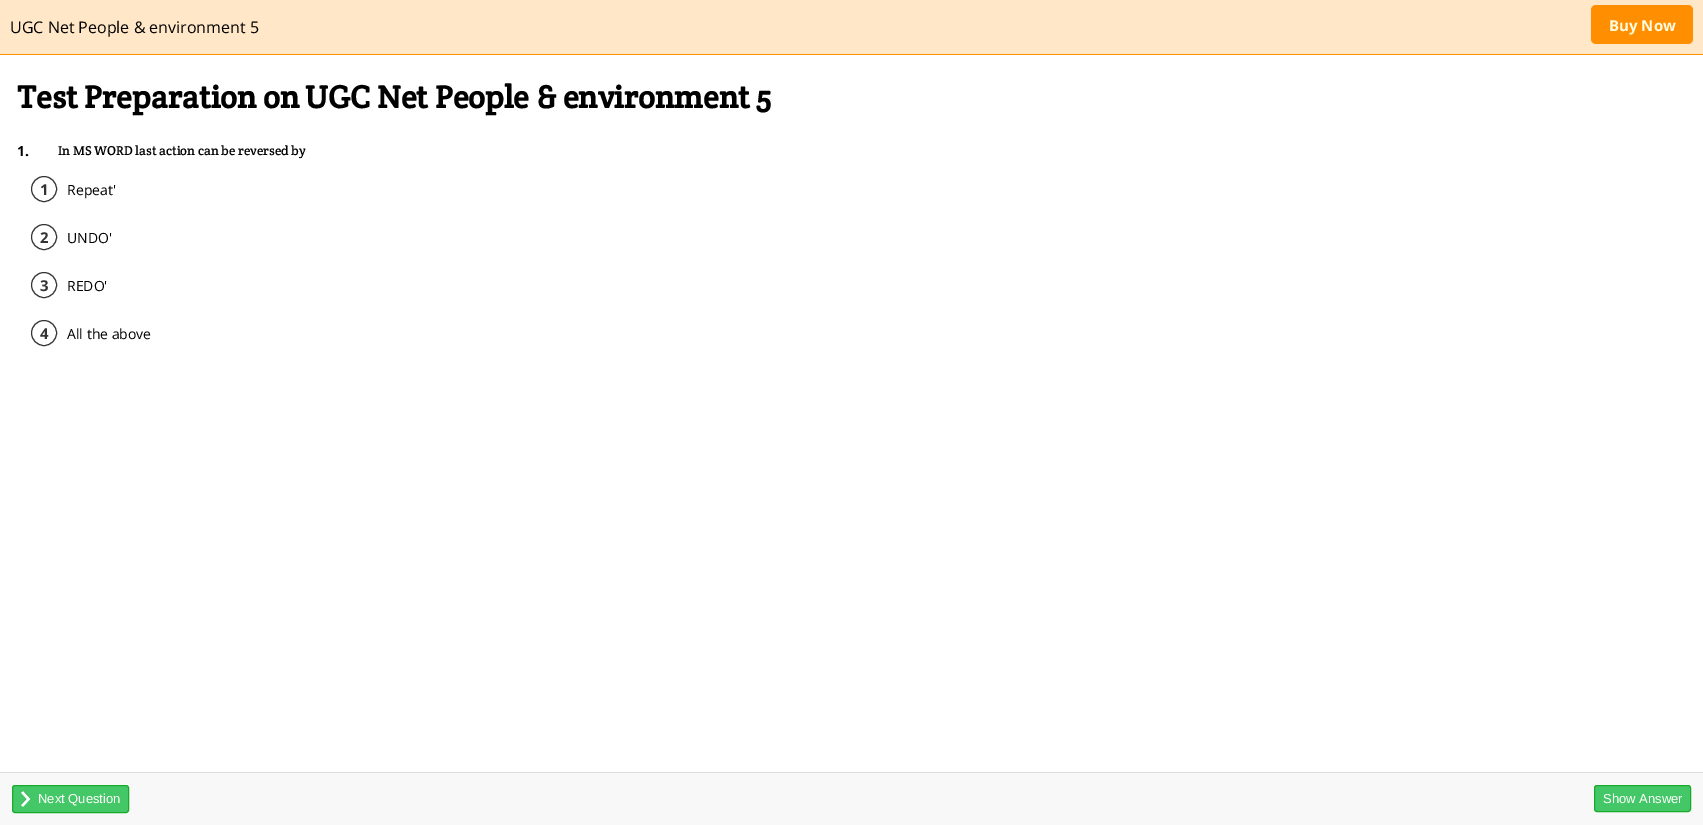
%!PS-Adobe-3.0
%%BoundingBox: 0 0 1703 825
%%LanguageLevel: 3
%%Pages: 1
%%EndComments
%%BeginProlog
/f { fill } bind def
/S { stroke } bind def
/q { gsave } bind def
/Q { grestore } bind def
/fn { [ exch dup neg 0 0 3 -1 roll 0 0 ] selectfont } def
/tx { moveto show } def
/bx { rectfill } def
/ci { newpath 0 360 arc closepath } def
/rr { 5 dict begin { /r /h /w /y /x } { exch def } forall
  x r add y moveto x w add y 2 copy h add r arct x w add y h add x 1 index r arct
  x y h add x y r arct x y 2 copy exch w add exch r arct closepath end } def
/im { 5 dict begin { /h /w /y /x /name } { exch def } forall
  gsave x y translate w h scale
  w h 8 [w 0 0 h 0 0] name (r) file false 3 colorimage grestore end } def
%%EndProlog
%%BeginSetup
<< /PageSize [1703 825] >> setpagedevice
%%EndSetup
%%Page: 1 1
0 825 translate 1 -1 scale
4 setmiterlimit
1 setgray
0 0 1703 825 bx
1 0.906 0.784 setrgbcolor
0 0 1703 54 bx
1 0.561 0 setrgbcolor
0 54 1703 1 bx
/OpenSans-Regular 16 fn
0 setgray
(UGC Net People & environment 5) 10 33 tx
1 0.561 0 setrgbcolor
1591 5 102 39 5 rr f
/OpenSans-Bold 15 fn
0.996 0.984 0.871 setrgbcolor
(Buy Now) 1609 31 tx
/CreteRound-Bold 32 fn
0 setgray
(Test Preparation on UGC Net People & environment 5) 17 108 tx
/OpenSans-Bold 14 fn
(1.) 17 156 tx
/CreteRound-Regular 13 fn
(In MS WORD last action can be reversed by) 58 155 tx
0.2 setgray
44 189 12.5 ci S
/OpenSans-Bold 15 fn
(1) 40 195 tx
/OpenSans-Regular 14 fn
0 setgray
(Repeat') 67 195 tx
0.2 setgray
44 237 12.5 ci S
/OpenSans-Bold 15 fn
(2) 40 243 tx
/OpenSans-Regular 14 fn
0 setgray
(UNDO') 67 243 tx
0.2 setgray
44 285 12.5 ci S
/OpenSans-Bold 15 fn
(3) 40 291 tx
/OpenSans-Regular 14 fn
0 setgray
(REDO') 67 291 tx
0.2 setgray
44 333 12.5 ci S
/OpenSans-Bold 15 fn
(4) 40 339 tx
/OpenSans-Regular 14 fn
0 setgray
(All the above) 67 339 tx
0.973 setgray
0 773 1703 52 bx
0.867 setgray
0 772 1703 1 bx
0.267 0.78 0.404 setrgbcolor
12.5 785.5 116 27 2.5 rr q f Q
0.094 0.671 0.161 setrgbcolor
S
(image0.raw) 21 791 9 16 im
/LiberationSans-Regular 13 fn
1 setgray
(Next Question) 38 803 tx
0.267 0.78 0.404 setrgbcolor
1594.5 785.5 96 26 2.5 rr q f Q
0.094 0.671 0.161 setrgbcolor
S
1 setgray
(Show Answer) 1603 803 tx
showpage
%%EOF
